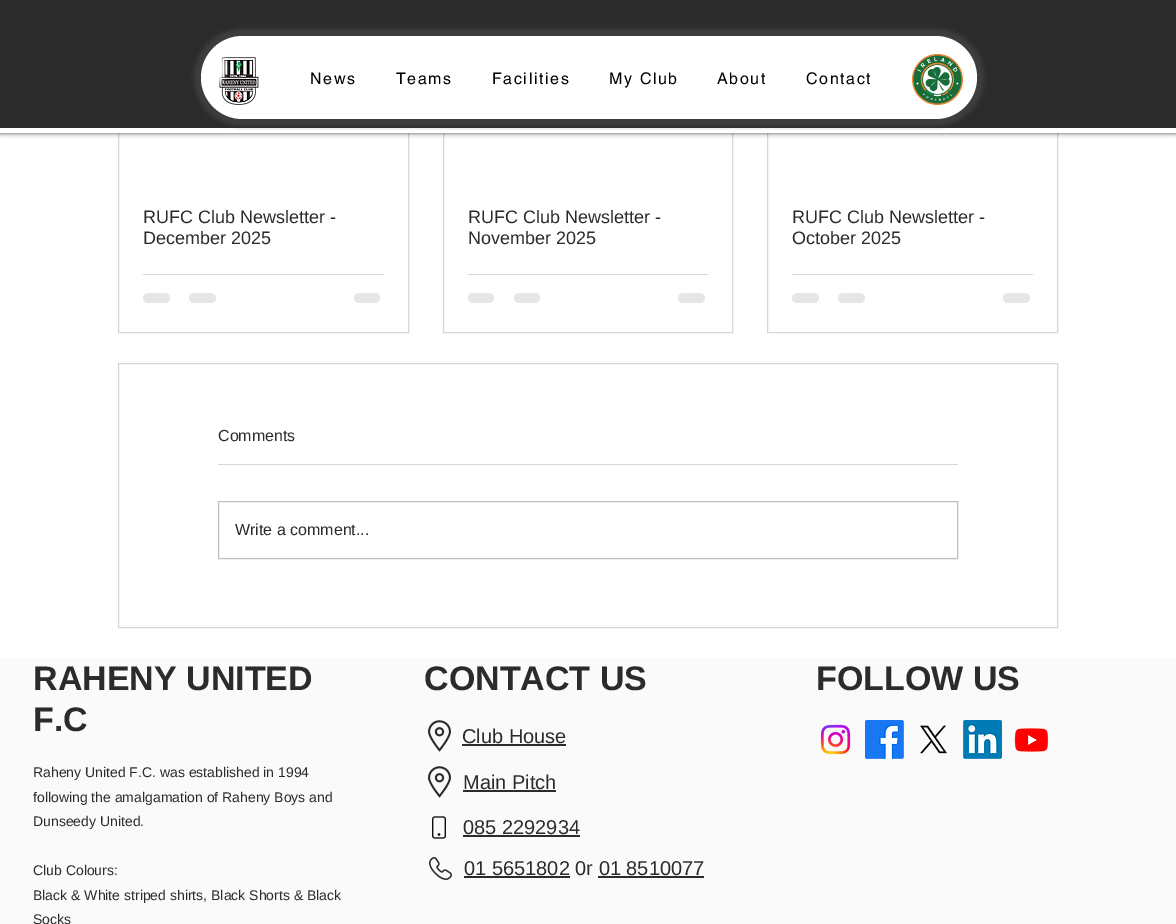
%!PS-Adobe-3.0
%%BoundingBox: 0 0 1176 924
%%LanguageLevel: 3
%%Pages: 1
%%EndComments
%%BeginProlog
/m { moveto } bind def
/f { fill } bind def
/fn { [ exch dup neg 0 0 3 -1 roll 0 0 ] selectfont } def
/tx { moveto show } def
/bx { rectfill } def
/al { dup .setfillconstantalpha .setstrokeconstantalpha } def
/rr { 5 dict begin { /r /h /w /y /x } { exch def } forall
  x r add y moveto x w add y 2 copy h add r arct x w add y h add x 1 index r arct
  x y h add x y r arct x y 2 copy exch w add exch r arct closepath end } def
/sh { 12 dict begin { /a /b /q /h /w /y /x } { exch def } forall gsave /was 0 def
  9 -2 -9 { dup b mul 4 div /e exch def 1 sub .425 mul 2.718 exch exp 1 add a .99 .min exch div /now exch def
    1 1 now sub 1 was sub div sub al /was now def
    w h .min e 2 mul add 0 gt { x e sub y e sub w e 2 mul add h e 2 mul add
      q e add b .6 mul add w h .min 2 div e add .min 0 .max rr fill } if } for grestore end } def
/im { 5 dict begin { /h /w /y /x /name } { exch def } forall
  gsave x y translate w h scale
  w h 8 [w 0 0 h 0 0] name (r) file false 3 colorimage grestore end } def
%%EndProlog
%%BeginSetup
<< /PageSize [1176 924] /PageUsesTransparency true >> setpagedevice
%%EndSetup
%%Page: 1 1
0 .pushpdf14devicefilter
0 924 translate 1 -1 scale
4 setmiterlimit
1 setgray
0 0 1176 924 bx
0.843 setgray
118.5 19.5 290 313 rectstroke
443.5 19.5 289 313 rectstroke
767.5 19.5 290 313 rectstroke
0 setgray
0 0 1176 133 0 2.5 0.7 sh
1 setgray
0 128 1176 5 bx
0.169 setgray
0 0 1176 128 bx
0.251 setgray
194 29 790 97 48.5 2 0.86 sh
1 setgray
201 36 776 83 41.5 rr f
(image0.raw) 219 57 40 48 im
/helvetica-Regular 16 fn
0 setgray
310 84 m 1.6 0 (News) ashow
396 84 m 1.6 0 (Teams) ashow
492 84 m 1.6 0 (Facilities) ashow
609 84 m 1.6 0 (My Club) ashow
717 84 m 1.6 0 (About) ashow
806 84 m 1.6 0 (Contact) ashow
(image1.raw) 912 54 51 51 im
/LiberationSans-Regular 18 fn
0.169 setgray
(RUFC Club Newsletter -) 143 223 tx
(December 2025) 143 244 tx
0.835 setgray
143 274 241 1 bx
0.902 setgray
143 293 27 10 5 rr f
189 293 27 10 5 rr f
354 293 26 10 5 rr f
0.169 setgray
(RUFC Club Newsletter -) 468 223 tx
(November 2025) 468 244 tx
0.835 setgray
468 274 240 1 bx
0.902 setgray
468 293 26 10 5 rr f
514 293 26 10 5 rr f
678 293 27 10 5 rr f
0.169 setgray
(RUFC Club Newsletter -) 792 223 tx
(October 2025) 792 244 tx
0.835 setgray
792 274 241 1 bx
0.902 setgray
792 293 27 10 5 rr f
838 293 27 10 5 rr f
1003 293 27 10 5 rr f
0.843 setgray
118.5 363.5 939 264 rectstroke
/LiberationSans-Regular 16 fn
0.169 setgray
(Comments) 218 441 tx
0.835 setgray
218 464 740 1 bx
0.749 setgray
218.5 501.5 739 57 rectstroke
0.169 setgray
(Write a comment...) 235 535 tx
0.98 setgray
0 658 1176 266 bx
/LiberationSans-Bold 34 fn
0.169 setgray
(RAHENY UNITED) 33 690 tx
(F.C) 33 731 tx
/LiberationSans-Regular 14 fn
(Raheny United F.C. was established in 1994) 33 777 tx
(following the amalgamation of Raheny Boys and) 33 802 tx
(Dunseedy United.) 33 826 tx
(Club Colours:) 33 875 tx
(Black & White striped shirts, Black Shorts & Black) 33 900 tx
(Socks) 33 924 tx
/LiberationSans-Bold 34 fn
(CONTACT US) 424 690 tx
(image2.raw) 428 720 23 32 im
/LiberationSans-Regular 20 fn
(Club House) 462 743 tx
462 744 104 2 bx
(image2.raw) 428 766 23 32 im
(Main Pitch) 463 789 tx
463 790 93 2 bx
(image3.raw) 432 816 14 23 im
(085 2292934) 463 834 tx
463 835 117 2 bx
(image4.raw) 429 857 23 23 im
(01 5651802 0r 01 8510077) 464 875 tx
464 876 106 2 bx
598 876 106 2 bx
/LiberationSans-Bold 34 fn
(FOLLOW US) 816 690 tx
(image5.raw) 820 724 31 31 im
(image6.raw) 865 720 39 39 im
(image7.raw) 920 725 27 29 im
(image8.raw) 963 720 39 39 im
(image9.raw) 1014 728 35 24 im
.poppdf14devicefilter showpage
%%EOF
